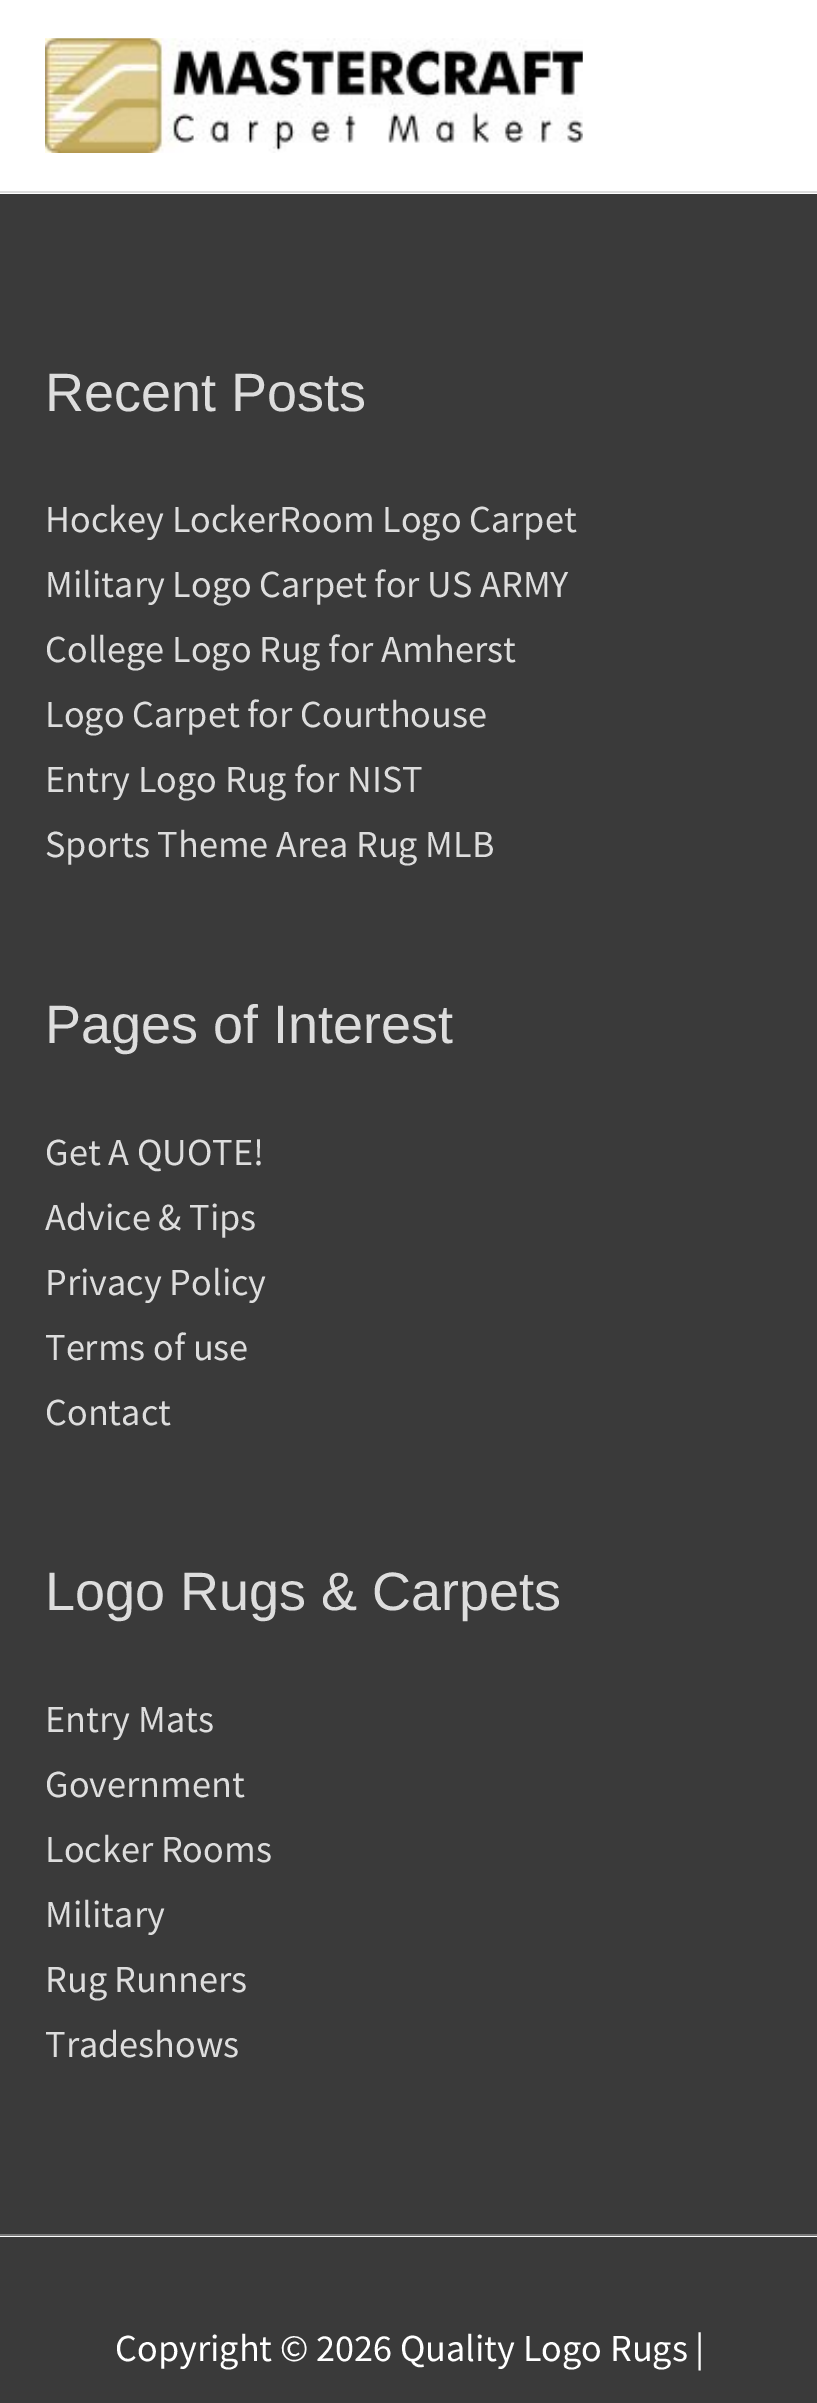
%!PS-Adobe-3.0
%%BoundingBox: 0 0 817 2403
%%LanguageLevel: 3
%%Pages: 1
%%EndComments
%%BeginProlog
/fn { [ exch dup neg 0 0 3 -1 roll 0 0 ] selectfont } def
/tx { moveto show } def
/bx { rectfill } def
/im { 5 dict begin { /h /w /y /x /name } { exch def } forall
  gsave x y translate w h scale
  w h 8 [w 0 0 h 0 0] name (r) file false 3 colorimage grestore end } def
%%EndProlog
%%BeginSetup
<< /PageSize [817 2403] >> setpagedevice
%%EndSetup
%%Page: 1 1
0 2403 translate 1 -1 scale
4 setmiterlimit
1 setgray
0 0 817 2403 bx
0.867 setgray
0 191 817 2 bx
(image0.raw) 45 38 538 115 im
0.227 setgray
0 194 817 2040 bx
/LiberationSans-Regular 54 fn
0.867 setgray
(Recent Posts) 45 411 tx
/SourceSansPro-Regular 38.25 fn
(Hockey LockerRoom Logo Carpet) 45 532 tx
(Military Logo Carpet for US ARMY) 45 597 tx
(College Logo Rug for Amherst) 45 662 tx
(Logo Carpet for Courthouse) 45 727 tx
(Entry Logo Rug for NIST) 45 792 tx
(Sports Theme Area Rug MLB) 45 857 tx
/LiberationSans-Regular 54 fn
(Pages of Interest) 45 1043 tx
/SourceSansPro-Regular 38.25 fn
(Get A QUOTE!) 45 1165 tx
(Advice & Tips) 45 1230 tx
(Privacy Policy) 45 1295 tx
(Terms of use) 45 1360 tx
(Contact) 45 1425 tx
/LiberationSans-Regular 54 fn
(Logo Rugs & Carpets) 45 1610 tx
/SourceSansPro-Regular 38.25 fn
(Entry Mats) 45 1732 tx
(Government) 45 1797 tx
(Locker Rooms) 45 1862 tx
(Military) 45 1927 tx
(Rug Runners) 45 1992 tx
(Tradeshows) 45 2057 tx
0.478 setgray
0 2234 817 2 bx
0.227 setgray
0 2237 817 166 bx
1 setgray
(Copyright © 2026 Quality Logo Rugs |) 115 2361 tx
showpage
%%EOF
